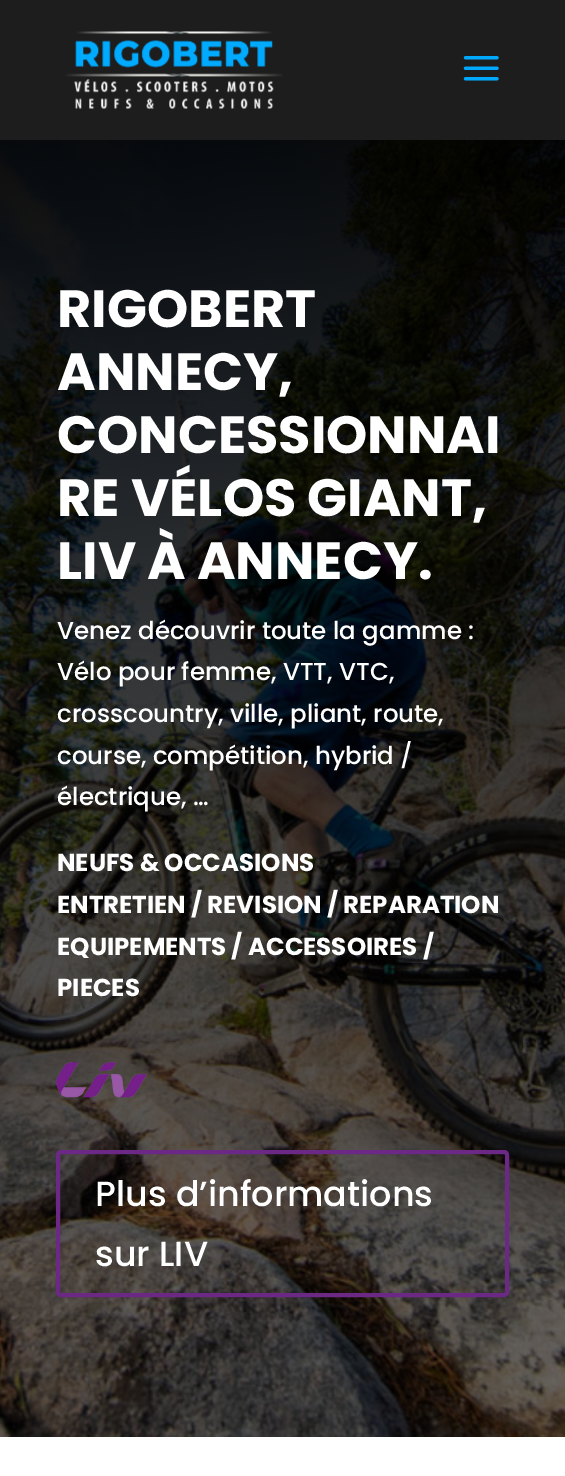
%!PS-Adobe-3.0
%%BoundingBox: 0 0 565 1476
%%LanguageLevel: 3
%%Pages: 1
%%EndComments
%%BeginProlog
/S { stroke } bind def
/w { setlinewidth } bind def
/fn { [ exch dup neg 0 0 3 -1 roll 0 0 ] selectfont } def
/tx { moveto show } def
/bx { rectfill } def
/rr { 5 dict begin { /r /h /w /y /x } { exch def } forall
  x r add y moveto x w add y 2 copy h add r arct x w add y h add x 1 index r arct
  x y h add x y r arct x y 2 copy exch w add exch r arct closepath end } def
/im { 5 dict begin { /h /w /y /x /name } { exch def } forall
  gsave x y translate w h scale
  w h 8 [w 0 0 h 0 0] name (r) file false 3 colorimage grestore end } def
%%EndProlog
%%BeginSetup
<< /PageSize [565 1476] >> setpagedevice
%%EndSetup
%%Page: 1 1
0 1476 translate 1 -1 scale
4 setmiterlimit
1 setgray
0 0 565 1476 bx
0.114 setgray
0 0 565 140 bx
(image0.raw) 66 31 217 78 im
(image1.raw) 463 56 36 25 im
(image2.raw) 0 140 565 1297 im
/Poppins-Bold 52.5 fn
1 setgray
(RIGOBERT) 57 327 tx
(ANNECY,) 57 390 tx
(CONCESSIONNAI) 57 453 tx
(RE VÉLOS GIANT,) 57 516 tx
(LIV À ANNECY.) 57 579 tx
/Poppins-Medium 24.5 fn
(Venez découvrir toute la gamme :) 57 639 tx
(Vélo pour femme, VTT, VTC,) 57 680 tx
(crosscountry, ville, pliant, route,) 57 722 tx
(course, compétition, hybrid /) 57 764 tx
(électrique, …) 57 805 tx
/Poppins-Bold 24.5 fn
(NEUFS & OCCASIONS) 57 871 tx
(ENTRETIEN / REVISION / REPARATION) 57 913 tx
(EQUIPEMENTS / ACCESSOIRES /) 57 955 tx
(PIECES) 57 996 tx
(image3.raw) 56 1062 91 36 im
0.42 0.157 0.522 setrgbcolor
4 w
58 1152 449 143 3 rr S
/Poppins-Medium 35 fn
1 setgray
(Plus d’informations) 95 1206 tx
(sur LIV) 95 1266 tx
showpage
%%EOF
